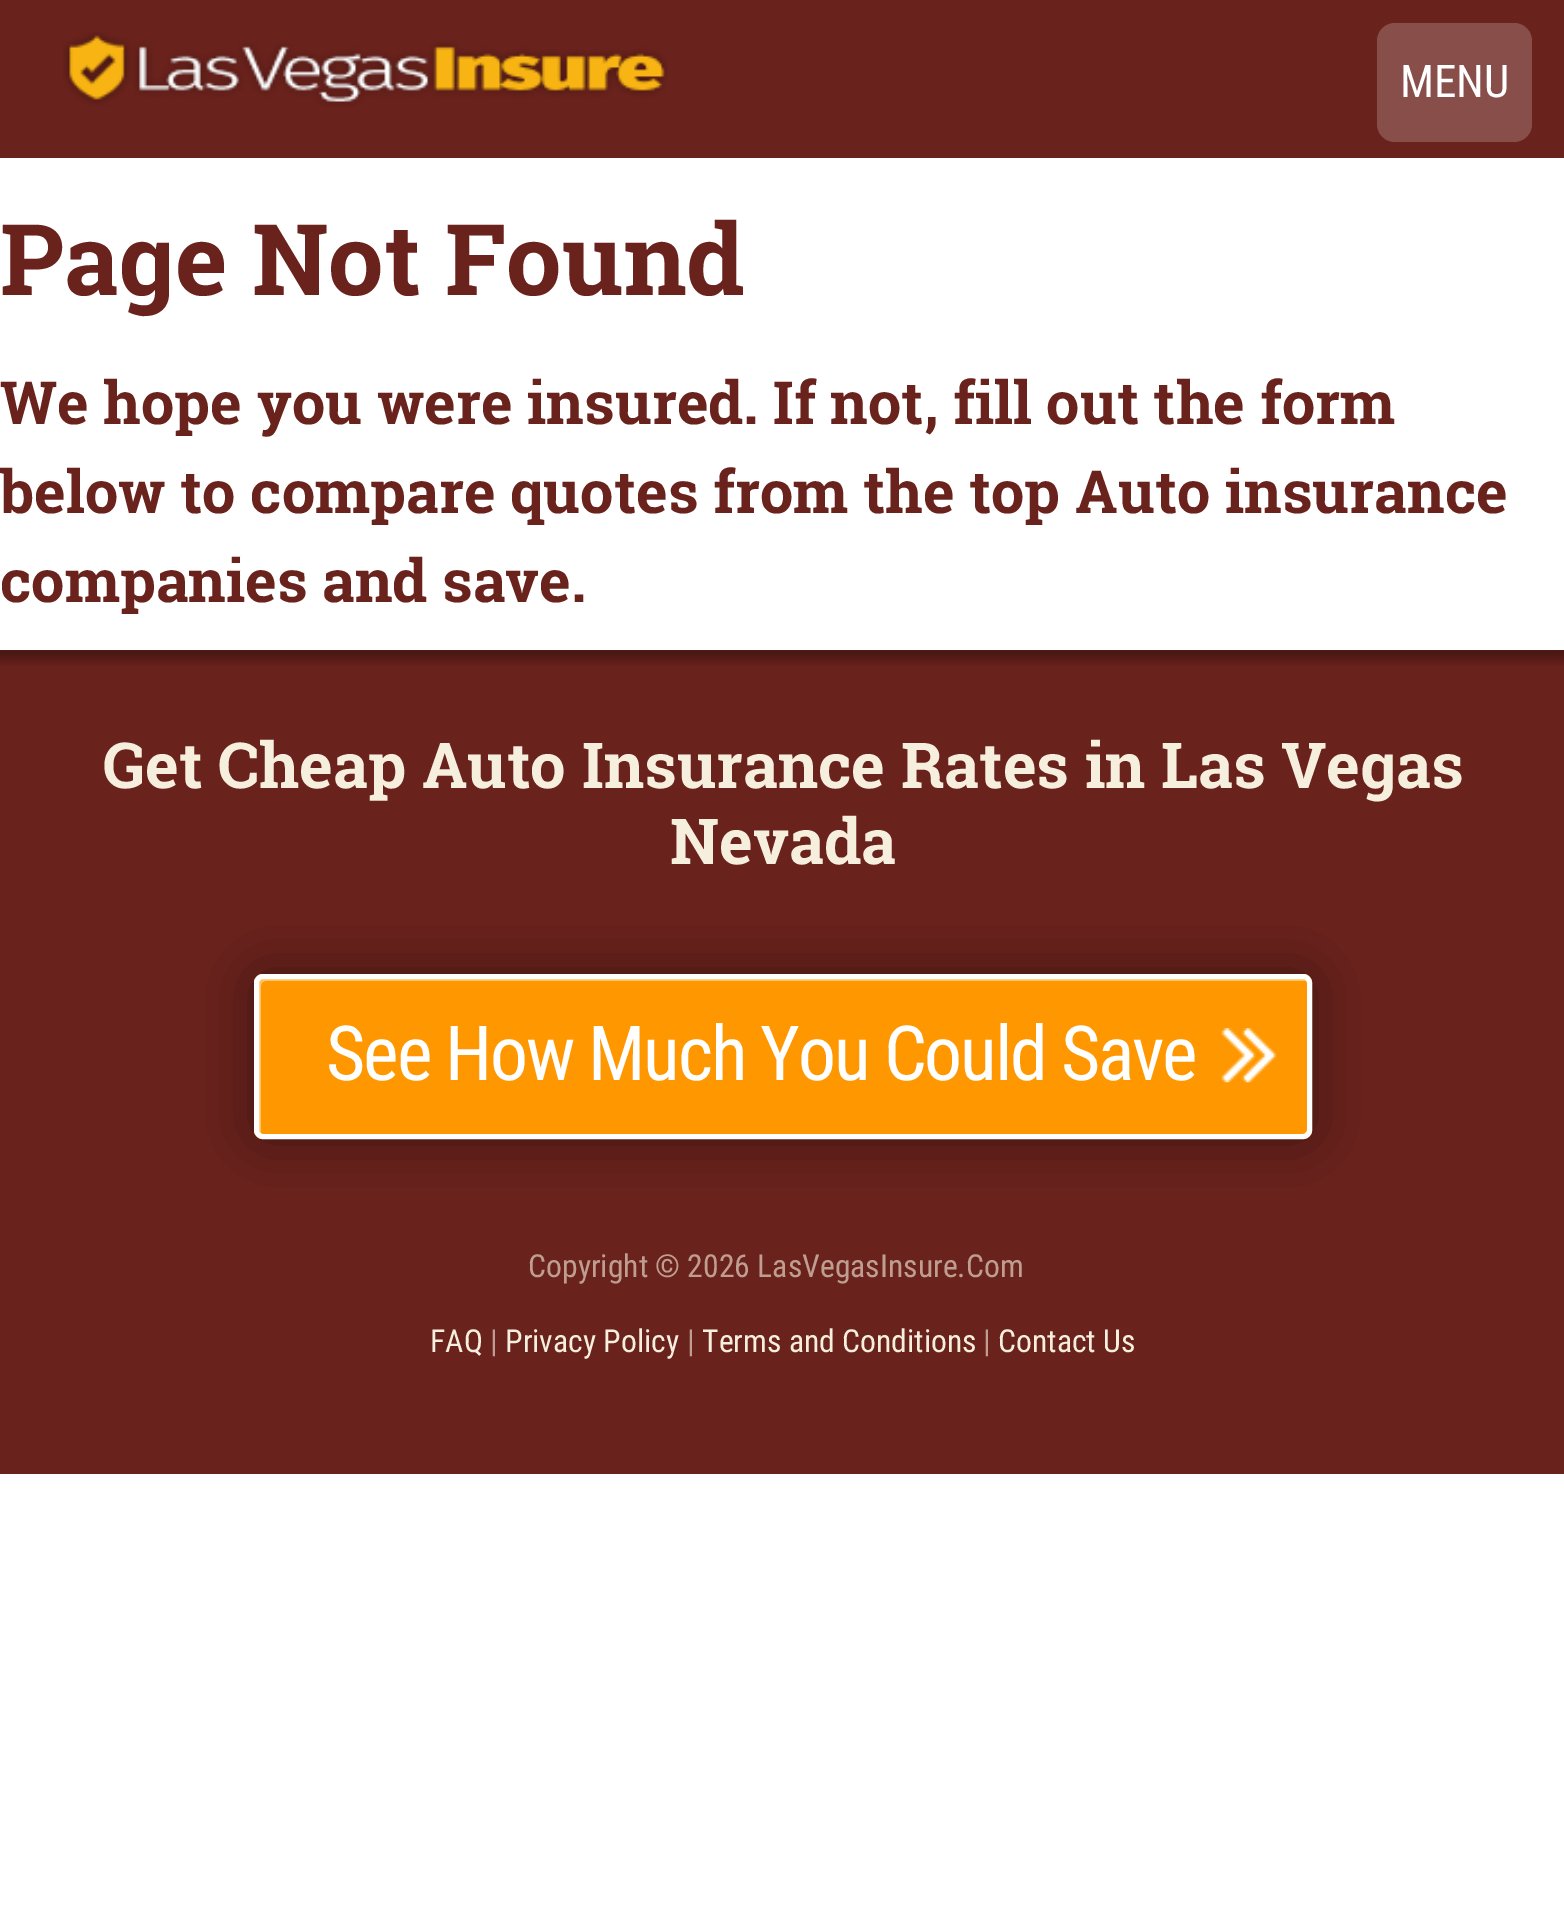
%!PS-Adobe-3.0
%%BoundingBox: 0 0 1564 1910
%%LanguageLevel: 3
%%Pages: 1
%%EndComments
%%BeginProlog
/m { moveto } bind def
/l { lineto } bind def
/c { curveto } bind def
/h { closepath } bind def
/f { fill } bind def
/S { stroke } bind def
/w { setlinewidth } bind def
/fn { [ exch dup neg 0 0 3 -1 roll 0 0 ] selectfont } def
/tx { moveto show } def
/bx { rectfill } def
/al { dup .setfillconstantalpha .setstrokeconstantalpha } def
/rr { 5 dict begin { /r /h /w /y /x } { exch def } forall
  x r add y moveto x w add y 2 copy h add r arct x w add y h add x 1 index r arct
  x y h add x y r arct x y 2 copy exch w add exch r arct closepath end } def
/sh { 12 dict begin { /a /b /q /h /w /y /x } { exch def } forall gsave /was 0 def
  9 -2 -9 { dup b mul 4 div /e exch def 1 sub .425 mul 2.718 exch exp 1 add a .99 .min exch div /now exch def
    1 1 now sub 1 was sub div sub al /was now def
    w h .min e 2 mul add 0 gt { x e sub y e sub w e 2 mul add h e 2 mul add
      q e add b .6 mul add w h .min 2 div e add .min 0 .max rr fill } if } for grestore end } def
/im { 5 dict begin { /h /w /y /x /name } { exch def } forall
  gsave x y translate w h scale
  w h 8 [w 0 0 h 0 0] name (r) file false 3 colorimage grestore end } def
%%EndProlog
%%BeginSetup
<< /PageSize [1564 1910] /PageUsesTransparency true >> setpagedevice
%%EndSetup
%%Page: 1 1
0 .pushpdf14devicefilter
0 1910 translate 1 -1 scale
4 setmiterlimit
1 setgray
0 0 1564 1910 bx
0.416 0.133 0.11 setrgbcolor
0 0 1564 158 bx
(image0.raw) 63 32 605 75 im
0.533 0.306 0.286 setrgbcolor
1377 23 155 119 18 rr f
/RobotoCondensed-Regular 45 fn
1 setgray
(MENU) 1400 97 tx
/RobotoSlab-Bold 99 fn
0.416 0.133 0.11 setrgbcolor
(Page Not Found) 0 295 tx
/RobotoSlab-Bold 59.4 fn
(We hope you were insured. If not, fill out the form) 0 424 tx
(below to compare quotes from the top Auto insurance) 0 513 tx
(companies and save.) 0 602 tx
0 650 1564 824 bx
(image1.raw) 0 650 1564 16 im
/RobotoSlab-Bold 63.4 fn
0.969 0.937 0.867 setrgbcolor
(Get Cheap Auto Insurance Rates in Las Vegas) 103 788 tx
(Nevada) 670 864 tx
0 setgray
254 974 1058 165 9 28 0.4 sh
1 0.596 0 setrgbcolor
254 974 1058 165 9 rr f
(image2.raw) 1221 1028 55 55 im
1 0.757 0.4 setrgbcolor
266 981 m 1306 981 l 1305 980 1304 979 1302 979 c 264 979 l 261 979 259 981 259 984 c 259 1129 l 259 1131 260 1132 261 1133 c 261 986 l 261 983 263 981 266 981 c h f
1 setgray
5 w
256.5 976.5 1053 160 6.5 rr S
/RobotoCondensed-Regular 76 fn
326 1080 m -2.25 0 (See How Much You Could Save) ashow
/RobotoCondensed-Regular 31.7 fn
0.749 0.616 0.565 setrgbcolor
(Copyright © 2026 LasVegasInsure.Com) 528 1277 tx
0.969 0.937 0.867 setrgbcolor
(FAQ) 430 1352 tx
0.749 0.616 0.565 setrgbcolor
(|) 490 1352 tx
0.969 0.937 0.867 setrgbcolor
(Privacy Policy) 505 1352 tx
0.749 0.616 0.565 setrgbcolor
(|) 687 1352 tx
0.969 0.937 0.867 setrgbcolor
(Terms and Conditions) 702 1352 tx
0.749 0.616 0.565 setrgbcolor
(|) 983 1352 tx
0.969 0.937 0.867 setrgbcolor
(Contact Us) 998 1352 tx
.poppdf14devicefilter showpage
%%EOF
